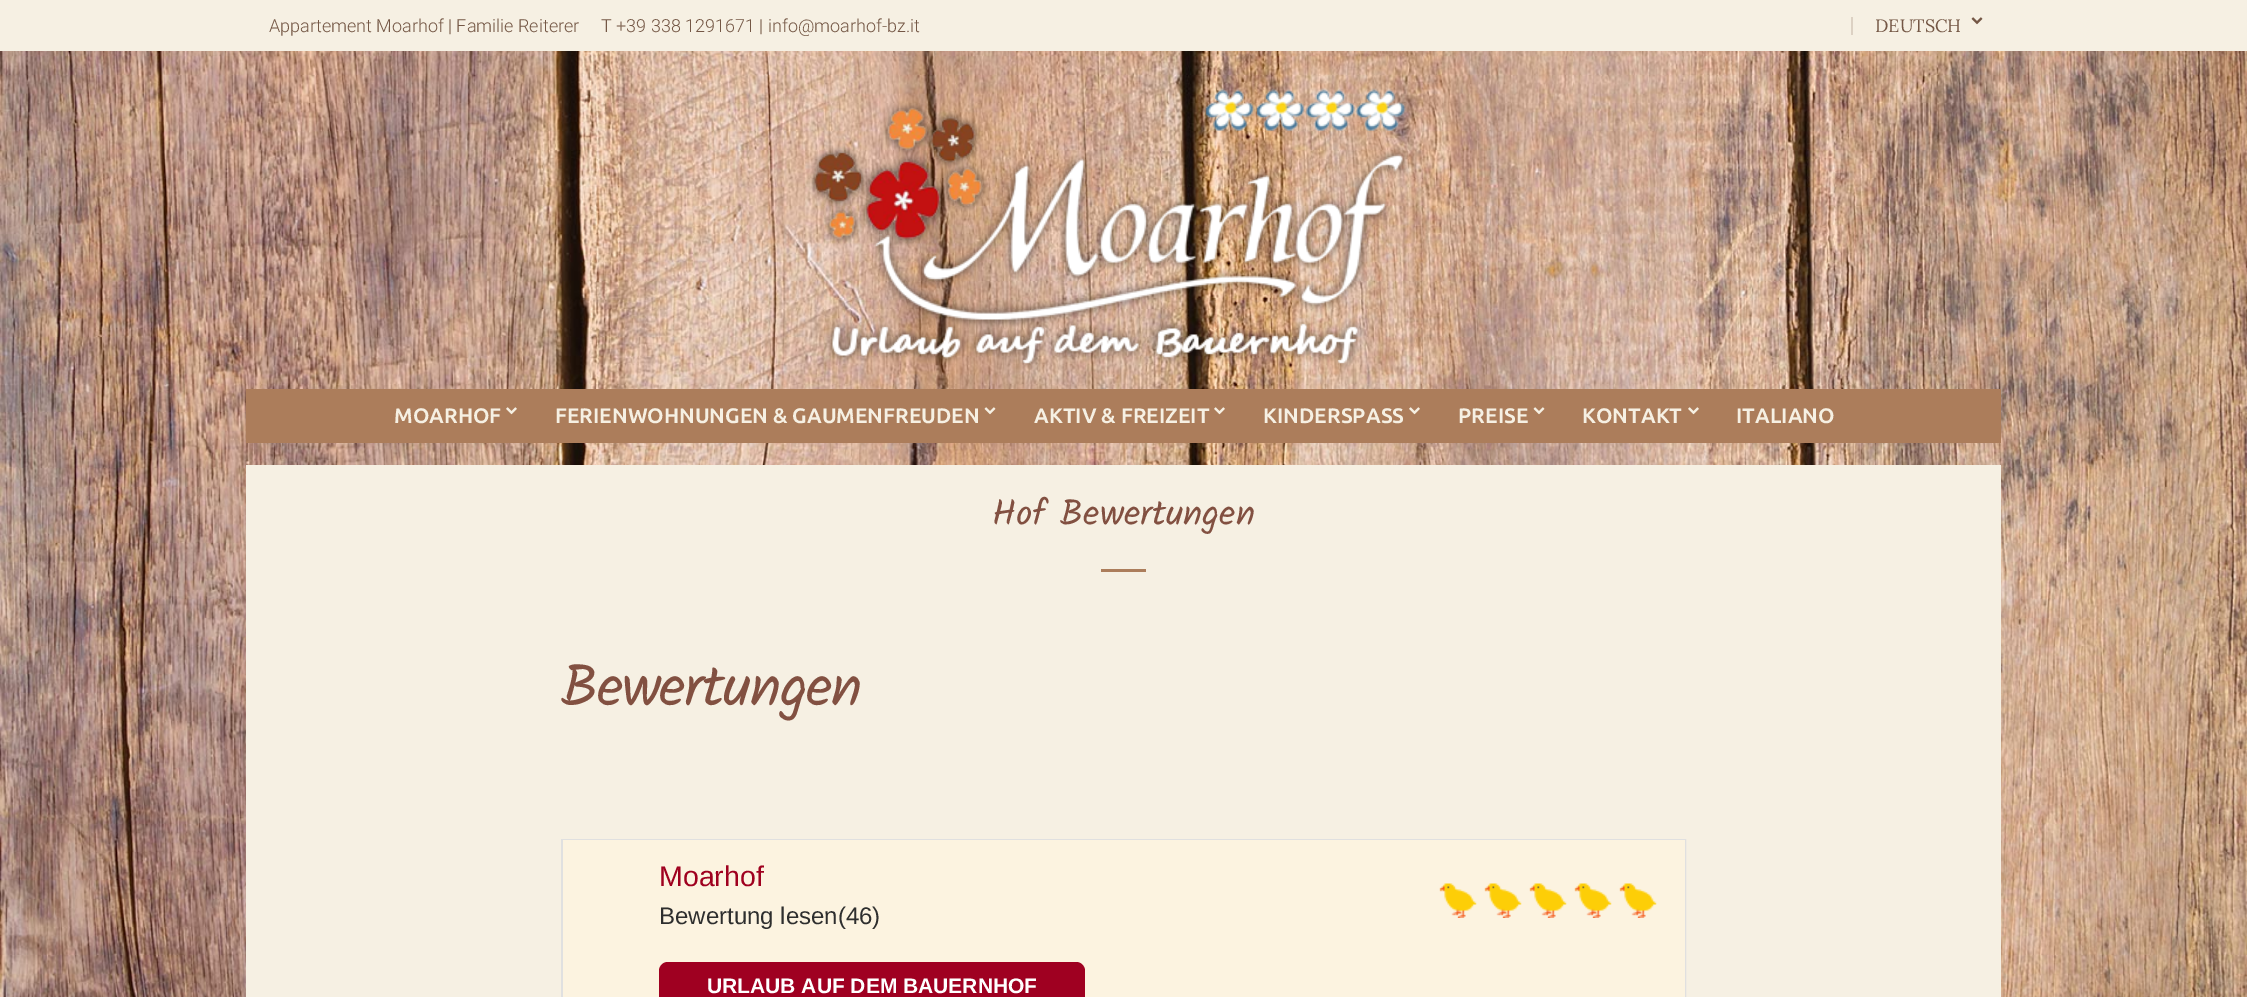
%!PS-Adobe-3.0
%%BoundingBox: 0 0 2247 997
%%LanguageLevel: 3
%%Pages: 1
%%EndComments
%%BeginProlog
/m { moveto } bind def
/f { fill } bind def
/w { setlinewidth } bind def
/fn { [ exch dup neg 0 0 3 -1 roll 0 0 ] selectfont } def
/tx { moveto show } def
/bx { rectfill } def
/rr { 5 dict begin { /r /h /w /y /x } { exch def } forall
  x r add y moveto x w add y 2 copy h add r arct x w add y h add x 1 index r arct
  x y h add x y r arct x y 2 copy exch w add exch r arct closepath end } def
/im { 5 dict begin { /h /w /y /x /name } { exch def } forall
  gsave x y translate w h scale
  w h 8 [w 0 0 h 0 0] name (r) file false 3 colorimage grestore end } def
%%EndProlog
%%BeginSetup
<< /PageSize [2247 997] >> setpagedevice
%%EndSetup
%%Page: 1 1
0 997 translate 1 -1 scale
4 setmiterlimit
1 setgray
0 0 2247 997 bx
(image0.raw) 0 51 2247 946 im
0.965 0.941 0.89 setrgbcolor
0 0 2247 51 bx
/Roboto-Light 18 fn
0.455 0.341 0.271 setrgbcolor
(Appartement Moarhof | Familie Reiterer) 269 32 tx
(T +39 338 1291671 | info@moarhof-bz.it) 601 32 tx
0.863 0.82 0.765 setrgbcolor
1851 17 2 18 bx
/Lora-Regular 18 fn
0.455 0.341 0.271 setrgbcolor
(DEUTSCH) 1875 32 tx
(image1.raw) 1971 17 12 8 im
(image2.raw) 807 88 602 282 im
0.675 0.49 0.357 setrgbcolor
246 389 1755 54 bx
/Ubuntu-Bold 21 fn
0.965 0.941 0.89 setrgbcolor
(MOARHOF) 394 423 tx
(image3.raw) 506 407 11 8 im
(FERIENWOHNUNGEN & GAUMENFREUDEN) 555 423 tx
(image4.raw) 984 407 12 8 im
(AKTIV & FREIZEIT) 1034 423 tx
(image3.raw) 1214 407 11 8 im
(KINDERSPASS) 1263 423 tx
(image3.raw) 1409 407 11 8 im
(PREISE) 1458 423 tx
(image4.raw) 1533 407 12 8 im
(KONTAKT) 1582 423 tx
(image3.raw) 1688 407 11 8 im
(ITALIANO) 1736 423 tx
246 465 1755 532 bx
/Kalam-Regular 36 fn
0.51 0.314 0.255 setrgbcolor
(Hof Bewertungen) 992 525 tx
0.675 0.49 0.357 setrgbcolor
1101 569 45 3 bx
/Kalam-Regular 58.5 fn
0.51 0.314 0.255 setrgbcolor
561 706 m -1.5 0 (Bewertungen) ashow
0.878 setgray
2 w
562 840 1123 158 rectstroke
0.988 0.953 0.878 setrgbcolor
563 840 1122 157 bx
/LiberationSans-Regular 28.5 fn
0.624 0 0.122 setrgbcolor
(Moarhof) 659 886 tx
/LiberationSans-Regular 24 fn
0.18 setgray
(Bewertung lesen\(46\)) 659 924 tx
(image5.raw) 1439 883 38 35 im
(image6.raw) 1484 883 38 35 im
(image5.raw) 1529 883 38 35 im
(image5.raw) 1574 883 38 35 im
(image5.raw) 1619 883 38 35 im
0.624 0 0.129 setrgbcolor
659 962 426 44 9 rr f
/LiberationSans-Bold 21 fn
1 setgray
(URLAUB AUF DEM BAUERNHOF) 707 993 tx
showpage
%%EOF
